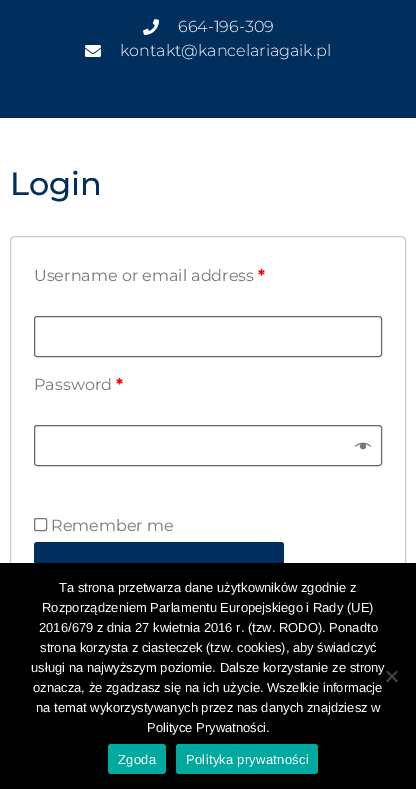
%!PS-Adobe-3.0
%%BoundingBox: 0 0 416 789
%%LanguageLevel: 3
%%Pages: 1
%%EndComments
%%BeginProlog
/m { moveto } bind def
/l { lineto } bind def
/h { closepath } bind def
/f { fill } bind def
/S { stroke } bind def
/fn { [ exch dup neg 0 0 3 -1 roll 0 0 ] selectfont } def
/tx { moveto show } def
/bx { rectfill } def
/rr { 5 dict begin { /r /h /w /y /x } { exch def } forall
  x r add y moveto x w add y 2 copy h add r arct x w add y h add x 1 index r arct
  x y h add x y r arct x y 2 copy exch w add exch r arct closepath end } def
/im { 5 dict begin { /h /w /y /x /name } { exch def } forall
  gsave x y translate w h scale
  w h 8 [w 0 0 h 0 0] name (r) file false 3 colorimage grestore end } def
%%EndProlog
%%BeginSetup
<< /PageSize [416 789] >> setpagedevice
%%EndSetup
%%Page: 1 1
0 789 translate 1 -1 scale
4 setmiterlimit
1 setgray
0 0 416 789 bx
0 0.184 0.365 setrgbcolor
0 0 416 118 bx
(image0.raw) 143 19 16 16 im
/Montserrat-Light 16 fn
1 setgray
(664-196-309) 178 32 tx
(image1.raw) 85 45 16 12 im
(kontakt@kancelariagaik.pl) 120 56 tx
/Montserrat-Medium 32 fn
0 0.184 0.365 setrgbcolor
(Login) 10 195 tx
0.812 0.784 0.847 setrgbcolor
10.5 236.5 395 423 4.5 rr S
/Montserrat-Regular 16 fn
0.478 setgray
(Username or email address) 34 281 tx
/Montserrat-Bold 16 fn
1 0 0 setrgbcolor
(*) 258 281 tx
0.4 setgray
34.5 316.5 347 40 2.5 rr S
/Montserrat-Regular 16 fn
0.478 setgray
(Password) 34 390 tx
/Montserrat-Bold 16 fn
1 0 0 setrgbcolor
(*) 116 390 tx
0.4 setgray
34.5 425.5 347 40 2.5 rr S
(image2.raw) 355 442 16 8 im
0.463 setgray
34.5 518.5 12 12 1.5 rr S
/Montserrat-Regular 16 fn
0.478 setgray
(Remember me) 51 531 tx
0 0.184 0.365 setrgbcolor
34 542 250 50 3 rr f
0 setgray
0 563 416 226 bx
/LiberationSans-Regular 13 fn
1 setgray
(Ta strona przetwarza dane użytkowników zgodnie z) 59 592 tx
(Rozporządzeniem Parlamentu Europejskiego i Rady \(UE\)) 42 612 tx
(2016/679 z dnia 27 kwietnia 2016 r. \(tzw. RODO\). Ponadto) 39 632 tx
(strona korzysta z ciasteczek \(tzw. cookies\), aby świadczyć) 40 652 tx
(usługi na najwyższym poziomie. Dalsze korzystanie ze strony) 31 672 tx
(oznacza, że zgadzasz się na ich użycie. Wszelkie informacje) 33 692 tx
(na temat wykorzystywanych przez nas danych znajdziesz w) 36 712 tx
(Polityce Prywatności.) 147 732 tx
0.251 setgray
396.5 670.5 m 398 672 l 387.5 682.5 l 386 681 l h f
386 672 m 387.5 670.5 l 398 681 l 396.5 682.5 l h f
0 0.663 0.616 setrgbcolor
108 744 58 30 3 rr f
1 setgray
118 764 m 0.25 0 (Zgoda) ashow
0 0.663 0.616 setrgbcolor
176 744 142 30 3 rr f
1 setgray
186 764 m 0.25 0 (Polityka prywatności) ashow
showpage
%%EOF
